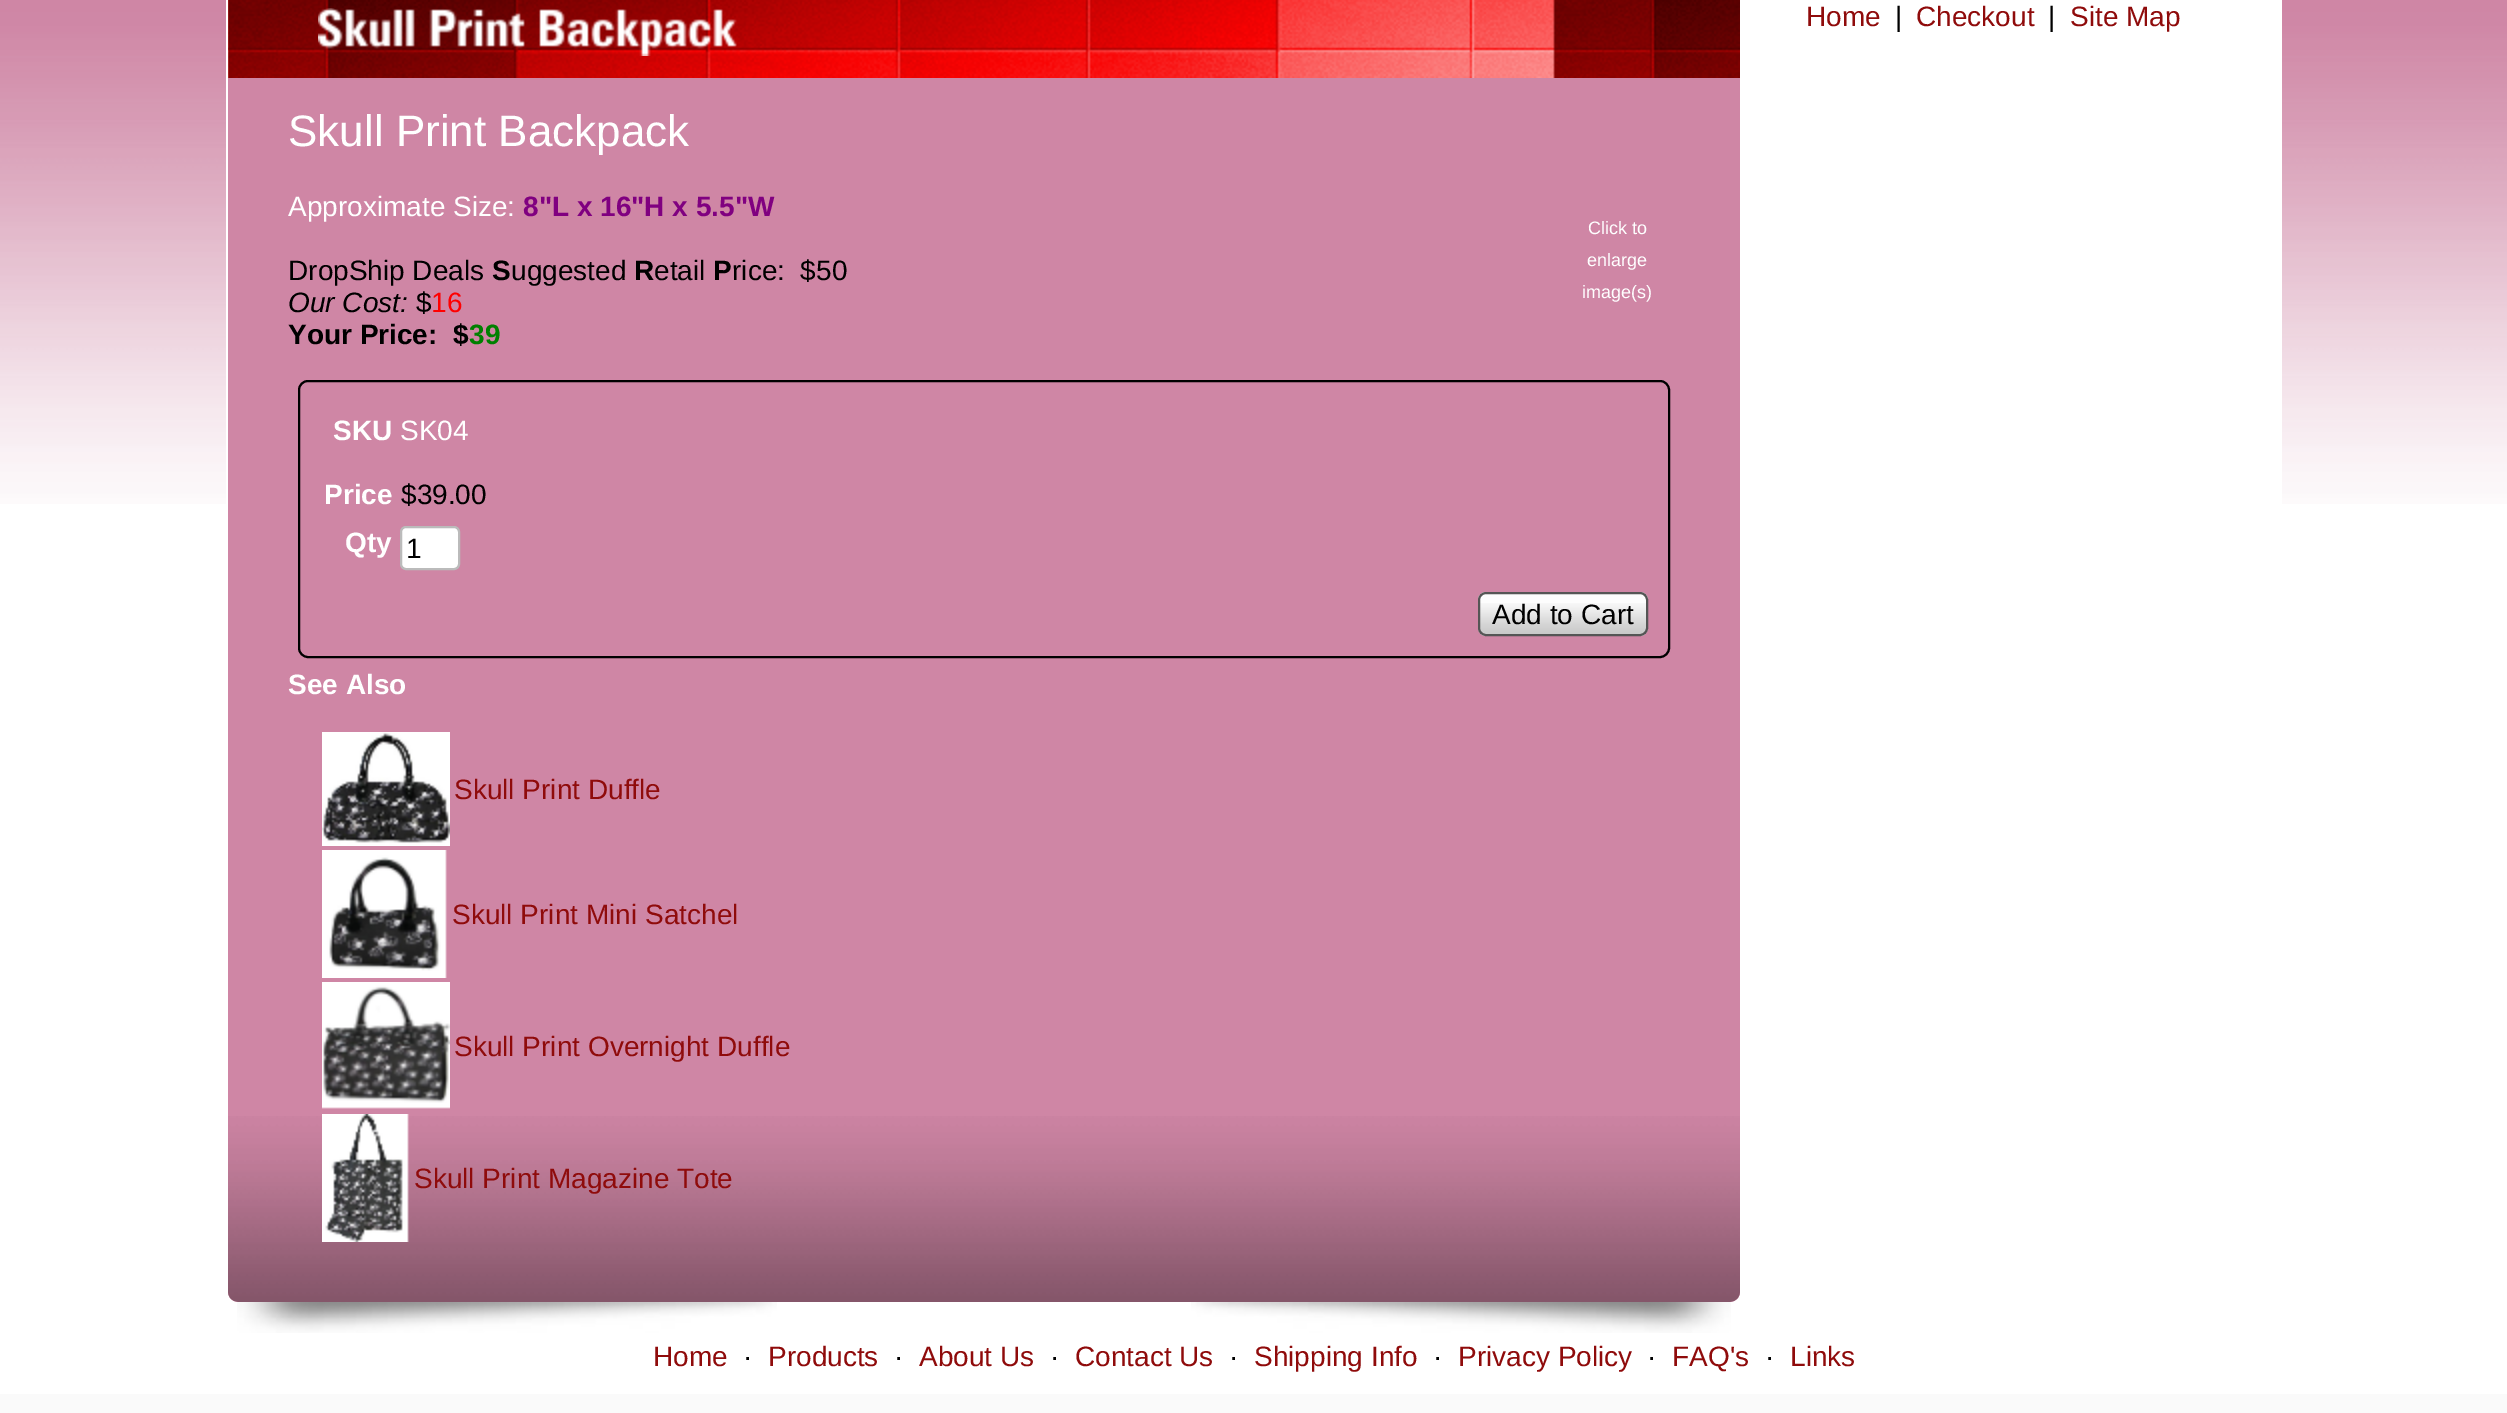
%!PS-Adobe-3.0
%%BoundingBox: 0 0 2507 1413
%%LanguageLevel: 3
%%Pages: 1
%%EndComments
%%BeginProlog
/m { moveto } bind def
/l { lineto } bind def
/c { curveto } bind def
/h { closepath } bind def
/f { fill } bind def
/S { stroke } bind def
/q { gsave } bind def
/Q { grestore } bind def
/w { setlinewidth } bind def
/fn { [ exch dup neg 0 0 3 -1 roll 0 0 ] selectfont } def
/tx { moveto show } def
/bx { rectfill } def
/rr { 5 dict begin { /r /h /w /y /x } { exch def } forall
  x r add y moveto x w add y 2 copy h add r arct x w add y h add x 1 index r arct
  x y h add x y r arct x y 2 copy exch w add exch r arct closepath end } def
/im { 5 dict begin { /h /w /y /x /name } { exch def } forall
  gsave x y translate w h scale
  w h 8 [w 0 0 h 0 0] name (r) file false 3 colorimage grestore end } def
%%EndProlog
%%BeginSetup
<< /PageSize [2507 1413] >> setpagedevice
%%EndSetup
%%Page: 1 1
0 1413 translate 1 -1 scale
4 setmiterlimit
1 setgray
0 0 2507 1413 bx
(image0.raw) 0 0 2507 504 im
226 0 2056 504 bx
/LiberationSans-Regular 28 fn
0.561 0.043 0.043 setrgbcolor
(Home) 1806 26 tx
0 setgray
(|) 1895 26 tx
0.561 0.043 0.043 setrgbcolor
(Checkout) 1916 26 tx
0 setgray
(|) 2048 26 tx
0.561 0.043 0.043 setrgbcolor
(Site Map) 2070 26 tx
(image1.raw) 228 0 1512 78 im
(image2.raw) 318 8 419 48 im
0.812 0.525 0.647 setrgbcolor
228 78 m 1740 78 l 1740 1292 l 1740 1297.5 1735.5 1302 1730 1302 c 238 1302 l 232.5 1302 228 1297.5 228 1292 c h f
(image3.raw) 228 1116 1512 186 im
/LiberationSans-Regular 44 fn
1 setgray
(Skull Print Backpack) 288 146 tx
/LiberationSans-Regular 28 fn
(Approximate Size:) 288 216 tx
/LiberationSans-Bold 28 fn
0.502 0 0.502 setrgbcolor
(8"L x 16"H x 5.5"W) 523 216 tx
/LiberationSans-Regular 28 fn
0 setgray
(DropShip Deals) 288 280 tx
/LiberationSans-Bold 28 fn
(S) 492 280 tx
/LiberationSans-Regular 28 fn
(uggested) 511 280 tx
/LiberationSans-Bold 28 fn
(R) 634 280 tx
/LiberationSans-Regular 28 fn
(etail) 654 280 tx
/LiberationSans-Bold 28 fn
(P) 713 280 tx
/LiberationSans-Regular 28 fn
(rice:  $50) 732 280 tx
/LiberationSans-Regular 18 fn
1 setgray
(Click to) 1588 234 tx
(enlarge) 1587 266 tx
(image\(s\)) 1582 298 tx
/LiberationSans-Italic 28 fn
0 setgray
(Our Cost:) 288 312 tx
/LiberationSans-Regular 28 fn
($) 416 312 tx
1 0 0 setrgbcolor
(16) 431 312 tx
/LiberationSans-Bold 28 fn
0 setgray
(Your Price:  $) 288 344 tx
0 0.502 0 setrgbcolor
(39) 469 344 tx
0 setgray
2 w
299 381 1370 276 9 rr S
1 setgray
(SKU) 333 440 tx
/LiberationSans-Regular 28 fn
(SK04) 400 440 tx
/LiberationSans-Bold 28 fn
(Price) 324 504 tx
/LiberationSans-Regular 28 fn
0 setgray
($39.00) 401 504 tx
/LiberationSans-Bold 28 fn
1 setgray
(Qty) 345 552 tx
401 527 58 42 5 rr q f Q
0.733 setgray
S
/LiberationSans-Regular 28 fn
0 setgray
(1) 406 558 tx
0.992 setgray
1478 592 170 44 8 rr f
(image4.raw) 1478 603 170 31 im
0.333 setgray
1479 593 168 42 7 rr S
0 setgray
(Add to Cart) 1492 624 tx
/LiberationSans-Bold 28 fn
1 setgray
(See Also) 288 694 tx
(image5.raw) 322 732 128 114 im
/LiberationSans-Regular 28 fn
0.561 0.043 0.043 setrgbcolor
(Skull Print Duffle) 454 799 tx
(image6.raw) 322 850 125 128 im
(Skull Print Mini Satchel) 452 924 tx
(image7.raw) 322 982 128 127 im
(Skull Print Overnight Duffle) 454 1056 tx
(image8.raw) 322 1114 87 128 im
(Skull Print Magazine Tote) 414 1188 tx
(image9.raw) 237 1302 540 31 im
(image10.raw) 1191 1302 540 31 im
0.98 setgray
0 1394 2507 19 bx
0.561 0.043 0.043 setrgbcolor
(Home) 653 1366 tx
0 setgray
(·) 743 1366 tx
0.561 0.043 0.043 setrgbcolor
(Products) 768 1366 tx
0 setgray
(·) 894 1366 tx
0.561 0.043 0.043 setrgbcolor
(About Us) 919 1366 tx
0 setgray
(·) 1050 1366 tx
0.561 0.043 0.043 setrgbcolor
(Contact Us) 1075 1366 tx
0 setgray
(·) 1229 1366 tx
0.561 0.043 0.043 setrgbcolor
(Shipping Info) 1254 1366 tx
0 setgray
(·) 1433 1366 tx
0.561 0.043 0.043 setrgbcolor
(Privacy Policy) 1458 1366 tx
0 setgray
(·) 1647 1366 tx
0.561 0.043 0.043 setrgbcolor
(FAQ's) 1672 1366 tx
0 setgray
(·) 1765 1366 tx
0.561 0.043 0.043 setrgbcolor
(Links) 1790 1366 tx
showpage
%%EOF
